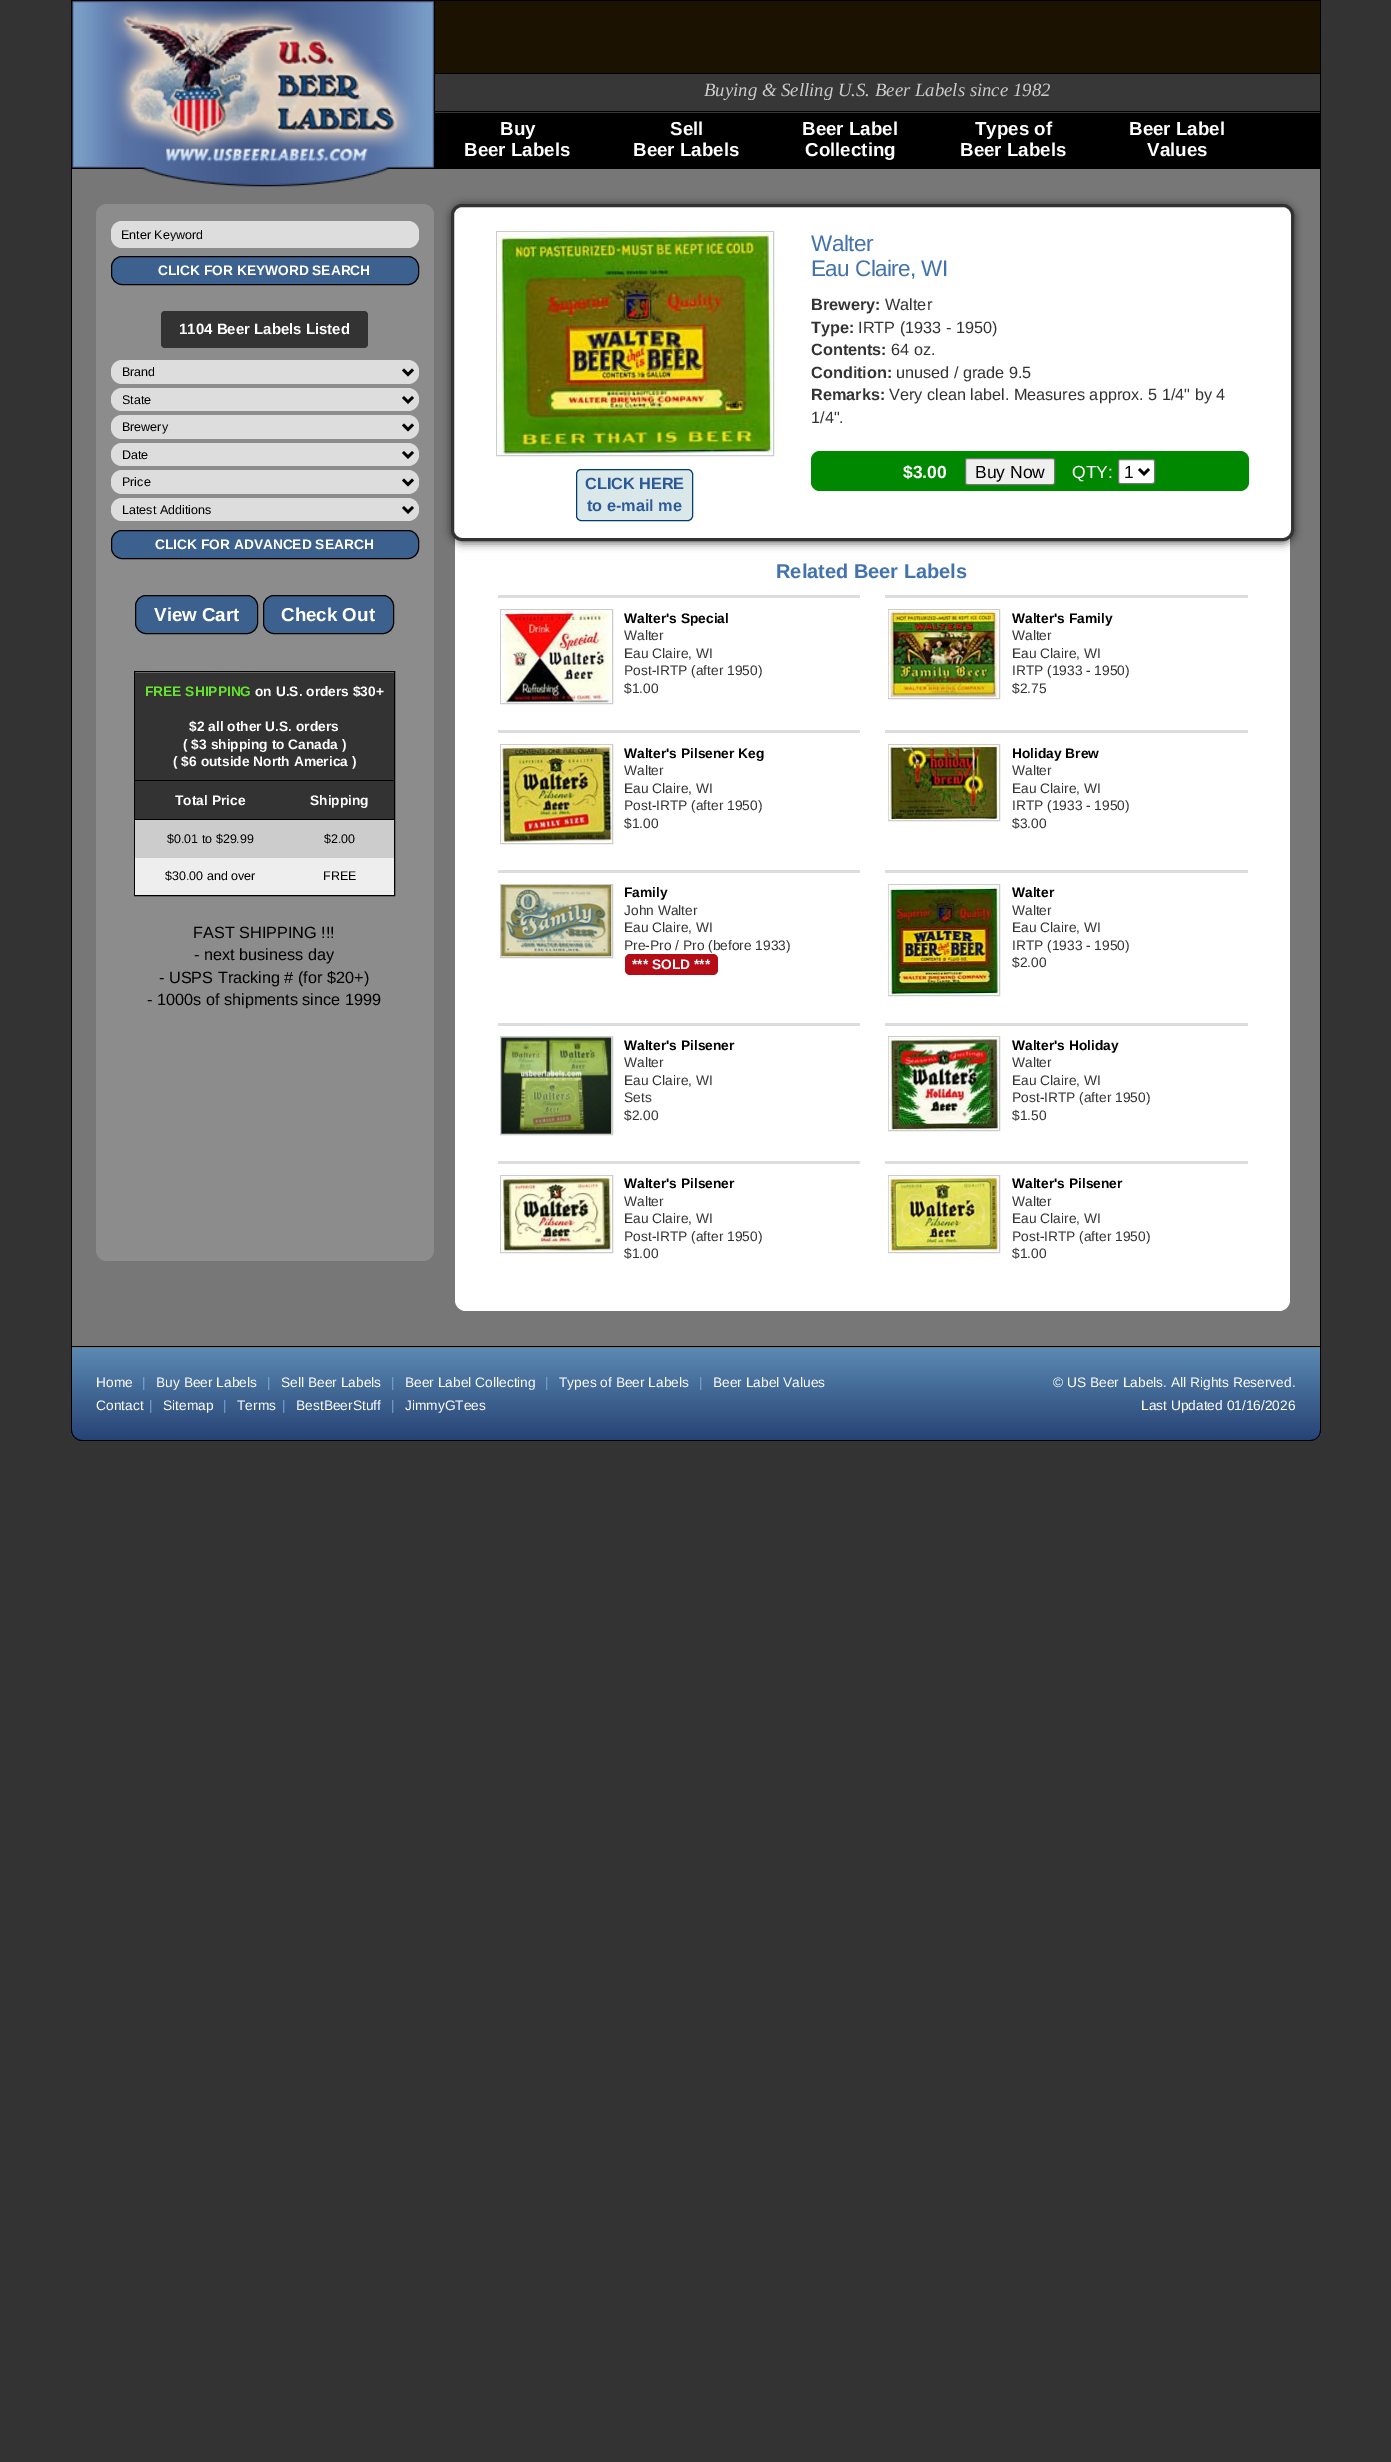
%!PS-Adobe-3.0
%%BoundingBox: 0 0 1391 2462
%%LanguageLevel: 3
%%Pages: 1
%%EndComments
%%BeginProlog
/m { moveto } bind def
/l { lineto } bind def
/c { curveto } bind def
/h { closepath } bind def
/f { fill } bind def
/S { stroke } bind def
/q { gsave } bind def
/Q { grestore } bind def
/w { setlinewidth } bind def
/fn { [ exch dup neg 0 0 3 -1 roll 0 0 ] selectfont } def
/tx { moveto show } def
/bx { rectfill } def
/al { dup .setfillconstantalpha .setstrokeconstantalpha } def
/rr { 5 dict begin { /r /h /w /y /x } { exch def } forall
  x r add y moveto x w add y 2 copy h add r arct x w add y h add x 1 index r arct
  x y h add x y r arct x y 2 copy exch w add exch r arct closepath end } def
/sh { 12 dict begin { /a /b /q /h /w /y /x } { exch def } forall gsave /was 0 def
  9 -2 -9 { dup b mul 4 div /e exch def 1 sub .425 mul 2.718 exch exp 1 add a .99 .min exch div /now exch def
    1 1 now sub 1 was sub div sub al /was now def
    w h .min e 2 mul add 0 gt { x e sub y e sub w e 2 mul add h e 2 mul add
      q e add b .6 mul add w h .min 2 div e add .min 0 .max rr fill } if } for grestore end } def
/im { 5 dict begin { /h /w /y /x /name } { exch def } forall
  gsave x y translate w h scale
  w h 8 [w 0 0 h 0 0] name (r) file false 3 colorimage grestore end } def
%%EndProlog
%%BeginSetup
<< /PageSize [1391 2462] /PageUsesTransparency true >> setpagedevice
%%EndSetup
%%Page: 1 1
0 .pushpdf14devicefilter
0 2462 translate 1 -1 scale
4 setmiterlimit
0.2 setgray
0 0 1391 2462 bx
0 setgray
71 0 1250 169 bx
0.467 setgray
72 169 1248 1179 bx
(image0.raw) 72 0 362 187 im
0.11 0.071 0.008 setrgbcolor
435 1 885 72 bx
0.216 setgray
435 74 885 39 bx
0 setgray
435 111 885 1 bx
/LiberationSerif-Italic 18.75 fn
0.796 setgray
(Buying & Selling U.S. Beer Labels since 1982) 704 96 tx
/LiberationSans-Bold 18.75 fn
1 setgray
(Buy) 500 135 tx
(Beer Labels) 464 156 tx
(Sell) 670 135 tx
(Beer Labels) 633 156 tx
(Beer Label) 802 135 tx
(Collecting) 805 156 tx
(Types of) 975 135 tx
(Beer Labels) 960 156 tx
(Beer Label) 1129 135 tx
(Values) 1147 156 tx
0 setgray
1320 169 1 1179 bx
71 1346 1250 1 bx
71 169 1 1179 bx
0.549 setgray
96 204 338 1057 11 rr f
0.867 setgray
111 221 308 27 11 rr f
q
121 228 288 13 rectclip
/LiberationSans-Regular 12.5 fn
0 setgray
(Enter Keyword) 121 239 tx
Q
0.235 0.38 0.561 setrgbcolor
111.5 256.5 307 28 10.5 rr q f Q
0 setgray
S
/LiberationSans-Bold 13.75 fn
1 setgray
(CLICK FOR KEYWORD SEARCH) 158 275 tx
0.2 setgray
161 311 207 37 4 rr f
/LiberationSans-Bold 15 fn
1 setgray
(1104 Beer Labels Listed) 179 334 tx
0.867 setgray
111 360 308 24 11 rr f
0 setgray
2.5 w
403 369.5 m 408 374.5 l 413 369.5 l S
q
123 364 270 16 rectclip
/LiberationSans-Regular 12.5 fn
(Brand) 122 376 tx
Q
0.867 setgray
111 388 308 23 11 rr f
0 setgray
403 397 m 408 402 l 413 397 l S
q
123 391 270 17 rectclip
/LiberationSans-Regular 12.5 fn
(State) 122 404 tx
Q
0.867 setgray
111 415 308 24 11 rr f
0 setgray
403 424.5 m 408 429.5 l 413 424.5 l S
q
123 419 270 16 rectclip
/LiberationSans-Regular 12.5 fn
(Brewery) 122 431 tx
Q
0.867 setgray
111 443 308 23 11 rr f
0 setgray
403 452 m 408 457 l 413 452 l S
q
123 446 270 17 rectclip
/LiberationSans-Regular 12.5 fn
(Date) 122 459 tx
Q
0.867 setgray
111 470 308 24 11 rr f
0 setgray
403 479.5 m 408 484.5 l 413 479.5 l S
q
123 474 270 16 rectclip
/LiberationSans-Regular 12.5 fn
(Price) 122 486 tx
Q
0.867 setgray
111 498 308 23 11 rr f
0 setgray
403 507 m 408 512 l 413 507 l S
q
123 501 270 17 rectclip
/LiberationSans-Regular 12.5 fn
(Latest Additions) 122 514 tx
Q
0.235 0.38 0.561 setrgbcolor
111.5 530.5 307 28 10.5 rr q f Q
0 setgray
1 w
S
/LiberationSans-Bold 13.75 fn
1 setgray
(CLICK FOR ADVANCED SEARCH) 155 549 tx
0.235 0.38 0.561 setrgbcolor
135.5 595.5 122 38 10.5 rr q f Q
0 setgray
S
/LiberationSans-Bold 18.75 fn
1 setgray
(View Cart) 154 621 tx
0.235 0.38 0.561 setrgbcolor
263.5 595.5 130 38 10.5 rr q f Q
0 setgray
S
1 setgray
(Check Out) 281 621 tx
0 setgray
134.5 671.5 260 224 rectstroke
0.2 setgray
135 673 259 107 bx
0 setgray
135 780 259 1 bx
/LiberationSans-Bold 13.75 fn
0.392 0.894 0.173 setrgbcolor
(FREE SHIPPING) 145 696 tx
1 setgray
(on U.S. orders $30+) 255 696 tx
($2 all other U.S. orders) 189 731 tx
(\( $3 shipping to Canada \)) 183 749 tx
(\( $6 outside North America \)) 173 766 tx
0.2 setgray
135 781 259 38 bx
0 setgray
135 819 259 1 bx
1 setgray
(Total Price) 175 805 tx
(Shipping) 310 805 tx
0.8 setgray
135 820 259 38 bx
/LiberationSans-Regular 12.5 fn
0 setgray
($0.01 to $29.99) 167 843 tx
($2.00) 324 843 tx
0.933 setgray
135 858 259 37 bx
0 setgray
($30.00 and over) 165 880 tx
(FREE) 323 880 tx
/LiberationSans-Regular 16.25 fn
(FAST SHIPPING !!!) 193 938 tx
(- next business day) 194 960 tx
(- USPS Tracking # \(for $20+\)) 159 983 tx
(- 1000s of shipments since 1999) 147 1005 tx
1 setgray
455 204 835 1107 11 rr f
0 setgray
450 204 845 340 13 4 0.5 sh
1 setgray
452.5 205.5 840 334 9.5 rr q f Q
0.2 setgray
3 w
S
/LiberationSans-Regular 22.5 fn
0.263 0.451 0.675 setrgbcolor
811 251 m -0.6 0 (Walter) ashow
811 276 m -0.6 0 (Eau Claire, WI) ashow
/LiberationSans-Bold 16.25 fn
0.2 setgray
(Brewery:) 811 310 tx
/LiberationSans-Regular 16.25 fn
(Walter) 885 310 tx
/LiberationSans-Bold 16.25 fn
(Type:) 811 333 tx
/LiberationSans-Regular 16.25 fn
(IRTP \(1933 - 1950\)) 858 333 tx
/LiberationSans-Bold 16.25 fn
(Contents:) 811 355 tx
/LiberationSans-Regular 16.25 fn
(64 oz.) 891 355 tx
/LiberationSans-Bold 16.25 fn
(Condition:) 811 378 tx
/LiberationSans-Regular 16.25 fn
(unused / grade 9.5) 896 378 tx
/LiberationSans-Bold 16.25 fn
(Remarks:) 811 400 tx
/LiberationSans-Regular 16.25 fn
(Very clean label. Measures approx. 5 1/4" by 4) 889 400 tx
(1/4".) 811 423 tx
0 0.533 0 setrgbcolor
811 451 438 40 9 rr f
/LiberationSans-Bold 17.5 fn
1 setgray
($3.00) 903 478 tx
0.937 setgray
965.5 458.5 89 26 2 rr q f Q
0.463 setgray
1 w
S
/LiberationSans-Regular 17.5 fn
0 setgray
(Buy Now) 975 478 tx
1 setgray
(QTY:) 1072 478 tx
1118.5 459.5 36 24 2 rr q f Q
0.463 setgray
S
0 setgray
2.5 w
1139 469 m 1144 474 l 1149 469 l S
(1) 1124 478 tx
0.8 setgray
1 w
496.5 231.5 277 224 rectstroke
(image1.raw) 497 232 276 223 im
0.859 0.91 0.918 setrgbcolor
576.5 469.5 116 51 4.5 rr q f Q
0.012 0.235 0.451 setrgbcolor
S
/LiberationSans-Bold 16.25 fn
0.173 0.349 0.596 setrgbcolor
(CLICK HERE) 585 489 tx
(to e-mail me) 587 511 tx
/LiberationSans-Bold 20 fn
0.263 0.451 0.675 setrgbcolor
(Related Beer Labels) 776 578 tx
0.867 setgray
498 595 362 3 bx
0.8 setgray
500.5 609.5 112 94 rectstroke
(image2.raw) 501 610 110 93 im
/LiberationSans-Bold 13.75 fn
0 setgray
(Walter's Special) 624 623 tx
/LiberationSans-Regular 13.75 fn
0.2 setgray
(Walter) 624 640 tx
(Eau Claire, WI) 624 658 tx
(Post-IRTP \(after 1950\)) 624 675 tx
($1.00) 624 693 tx
0.867 setgray
885 595 363 3 bx
0.8 setgray
888.5 609.5 111 89 rectstroke
(image3.raw) 888 610 111 88 im
/LiberationSans-Bold 13.75 fn
0 setgray
(Walter's Family) 1012 623 tx
/LiberationSans-Regular 13.75 fn
0.2 setgray
(Walter) 1012 640 tx
(Eau Claire, WI) 1012 658 tx
(IRTP \(1933 - 1950\)) 1012 675 tx
($2.75) 1012 693 tx
0.867 setgray
498 730 362 3 bx
0.8 setgray
500.5 744.5 112 99 rectstroke
(image4.raw) 501 745 111 98 im
/LiberationSans-Bold 13.75 fn
0 setgray
(Walter's Pilsener Keg) 624 758 tx
/LiberationSans-Regular 13.75 fn
0.2 setgray
(Walter) 624 775 tx
(Eau Claire, WI) 624 793 tx
(Post-IRTP \(after 1950\)) 624 810 tx
($1.00) 624 828 tx
0.867 setgray
885 730 363 3 bx
0.8 setgray
888.5 744.5 111 76 rectstroke
(image5.raw) 888 745 111 75 im
/LiberationSans-Bold 13.75 fn
0 setgray
(Holiday Brew) 1012 758 tx
/LiberationSans-Regular 13.75 fn
0.2 setgray
(Walter) 1012 775 tx
(Eau Claire, WI) 1012 793 tx
(IRTP \(1933 - 1950\)) 1012 810 tx
($3.00) 1012 828 tx
0.867 setgray
498 870 362 3 bx
0.8 setgray
500.5 884.5 112 73 rectstroke
(image6.raw) 501 885 111 72 im
/LiberationSans-Bold 13.75 fn
0 setgray
(Family) 624 897 tx
/LiberationSans-Regular 13.75 fn
0.2 setgray
(John Walter) 624 915 tx
(Eau Claire, WI) 624 932 tx
(Pre-Pro / Pro \(before 1933\)) 624 950 tx
0.706 0.051 0.09 setrgbcolor
625 954 93 21 5 rr f
/LiberationSans-Bold 13.75 fn
1 setgray
(*** SOLD ***) 632 969 tx
0.867 setgray
885 870 363 3 bx
0.8 setgray
888.5 884.5 111 111 rectstroke
(image7.raw) 888 885 111 110 im
0 setgray
(Walter) 1012 897 tx
/LiberationSans-Regular 13.75 fn
0.2 setgray
(Walter) 1012 915 tx
(Eau Claire, WI) 1012 932 tx
(IRTP \(1933 - 1950\)) 1012 950 tx
($2.00) 1012 967 tx
0.867 setgray
498 1023 362 3 bx
0.8 setgray
500.5 1036.5 112 98 rectstroke
(image8.raw) 501 1037 111 97 im
/LiberationSans-Bold 13.75 fn
0 setgray
(Walter's Pilsener) 624 1050 tx
/LiberationSans-Regular 13.75 fn
0.2 setgray
(Walter) 624 1067 tx
(Eau Claire, WI) 624 1085 tx
(Sets) 624 1102 tx
($2.00) 624 1120 tx
0.867 setgray
885 1023 363 3 bx
0.8 setgray
888.5 1036.5 111 94 rectstroke
(image9.raw) 888 1037 111 93 im
/LiberationSans-Bold 13.75 fn
0 setgray
(Walter's Holiday) 1012 1050 tx
/LiberationSans-Regular 13.75 fn
0.2 setgray
(Walter) 1012 1067 tx
(Eau Claire, WI) 1012 1085 tx
(Post-IRTP \(after 1950\)) 1012 1102 tx
($1.50) 1012 1120 tx
0.867 setgray
498 1161 362 3 bx
0.8 setgray
500.5 1175.5 112 77 rectstroke
(image10.raw) 501 1176 111 76 im
/LiberationSans-Bold 13.75 fn
0 setgray
(Walter's Pilsener) 624 1188 tx
/LiberationSans-Regular 13.75 fn
0.2 setgray
(Walter) 624 1206 tx
(Eau Claire, WI) 624 1223 tx
(Post-IRTP \(after 1950\)) 624 1241 tx
($1.00) 624 1258 tx
0.867 setgray
885 1161 363 3 bx
0.8 setgray
888.5 1175.5 111 77 rectstroke
(image11.raw) 888 1176 111 76 im
/LiberationSans-Bold 13.75 fn
0 setgray
(Walter's Pilsener) 1012 1188 tx
/LiberationSans-Regular 13.75 fn
0.2 setgray
(Walter) 1012 1206 tx
(Eau Claire, WI) 1012 1223 tx
(Post-IRTP \(after 1950\)) 1012 1241 tx
($1.00) 1012 1258 tx
q
71 1348 m 1321 1348 l 1321 1430 l 1321 1436 1316 1441 1310 1441 c 82 1441 l 76 1441 71 1436 71 1430 c h clip newpath
q 71 1348 m 1321 1348 l 1321 1440 l 71 1440 l h clip newpath
<< /ShadingType 2 /ColorSpace /DeviceRGB /Coords [696 1348 696 1440] /Extend [true true] /Function << /FunctionType 2 /Domain [0 1] /C0 [0.357 0.541 0.702] /C1 [0.153 0.263 0.459] /N 1 >> >> shfill Q
Q
0 setgray
71 1348 m 1321 1348 l 1321 1430 l 1321 1436 1316 1441 1310 1441 c 82 1441 l 76 1441 71 1436 71 1430 c h 72 1348 m 1320 1348 l 1320 1430 l 1320 1436 1316 1440 1310 1440 c 82 1440 l 77 1440 72 1436 72 1430 c h eofill
1 setgray
(Home) 96 1387 tx
0.49 0.663 0.867 setrgbcolor
(|) 142 1387 tx
1 setgray
(Buy Beer Labels) 156 1387 tx
0.49 0.663 0.867 setrgbcolor
(|) 267 1387 tx
1 setgray
(Sell Beer Labels) 281 1387 tx
0.49 0.663 0.867 setrgbcolor
(|) 391 1387 tx
1 setgray
(Beer Label Collecting) 405 1387 tx
0.49 0.663 0.867 setrgbcolor
(|) 545 1387 tx
1 setgray
(Types of Beer Labels) 559 1387 tx
0.49 0.663 0.867 setrgbcolor
(|) 699 1387 tx
1 setgray
(Beer Label Values) 713 1387 tx
(Contact) 96 1410 tx
0.49 0.663 0.867 setrgbcolor
(|) 149 1410 tx
1 setgray
(Sitemap) 163 1410 tx
0.49 0.663 0.867 setrgbcolor
(|) 223 1410 tx
1 setgray
(Terms) 237 1410 tx
0.49 0.663 0.867 setrgbcolor
(|) 282 1410 tx
1 setgray
(BestBeerStuff) 296 1410 tx
0.49 0.663 0.867 setrgbcolor
(|) 391 1410 tx
1 setgray
(JimmyGTees) 405 1410 tx
(© US Beer Labels. All Rights Reserved.) 1053 1387 tx
(Last Updated 01/16/2026) 1141 1410 tx
.poppdf14devicefilter showpage
%%EOF
